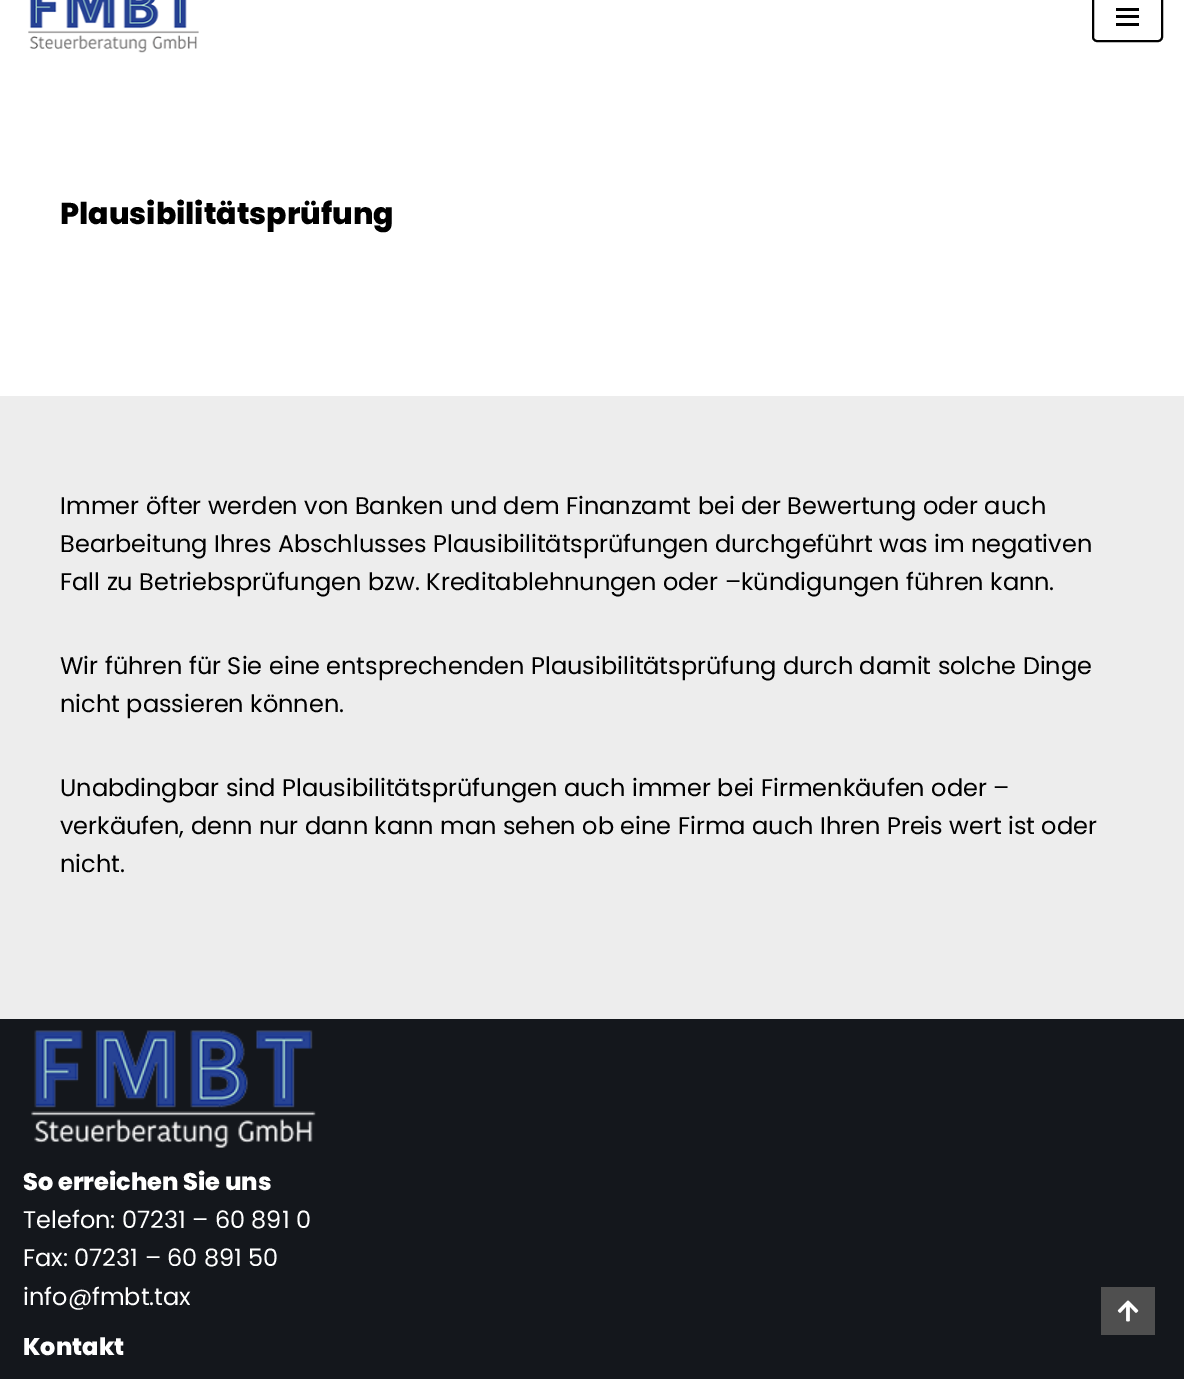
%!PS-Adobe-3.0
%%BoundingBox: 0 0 1184 1379
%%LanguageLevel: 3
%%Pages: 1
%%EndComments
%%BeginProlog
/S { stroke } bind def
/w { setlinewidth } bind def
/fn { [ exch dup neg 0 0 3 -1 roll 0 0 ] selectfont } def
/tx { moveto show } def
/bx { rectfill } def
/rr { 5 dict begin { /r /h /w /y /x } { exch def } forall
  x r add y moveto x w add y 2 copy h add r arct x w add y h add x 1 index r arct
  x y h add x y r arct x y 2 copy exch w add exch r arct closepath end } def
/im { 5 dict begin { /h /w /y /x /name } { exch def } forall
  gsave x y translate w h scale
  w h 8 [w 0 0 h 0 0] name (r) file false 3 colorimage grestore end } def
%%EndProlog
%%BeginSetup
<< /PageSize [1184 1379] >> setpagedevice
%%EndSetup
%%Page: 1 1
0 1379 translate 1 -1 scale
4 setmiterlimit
1 setgray
0 0 1184 1379 bx
(image0.raw) 28 0 171 53 im
0 setgray
2 w
1093 -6 69 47 4 rr S
1116 8 23 3 bx
1116 15 23 3 bx
1116 23 23 3 bx
/Poppins-ExtraBold 30 fn
(Plausibilitätsprüfung) 60 224 tx
0.929 setgray
0 396 1184 623 bx
/Poppins-Regular 24 fn
0 setgray
(Immer öfter werden von Banken und dem Finanzamt bei der Bewertung oder auch) 60 514 tx
(Bearbeitung Ihres Abschlusses Plausibilitätsprüfungen durchgeführt was im negativen) 60 552 tx
(Fall zu Betriebsprüfungen bzw. Kreditablehnungen oder –kündigungen führen kann.) 60 590 tx
(Wir führen für Sie eine entsprechenden Plausibilitätsprüfung durch damit solche Dinge) 60 674 tx
(nicht passieren können.) 60 712 tx
(Unabdingbar sind Plausibilitätsprüfungen auch immer bei Firmenkäufen oder –) 60 796 tx
(verkäufen, denn nur dann kann man sehen ob eine Firma auch Ihren Preis wert ist oder) 60 834 tx
(nicht.) 60 872 tx
0.078 0.09 0.11 setrgbcolor
0 1019 1184 360 bx
(image1.raw) 31 1030 285 118 im
/Poppins-ExtraBold 24 fn
1 setgray
(So erreichen Sie uns) 23 1190 tx
/Poppins-Regular 24 fn
(Telefon: 07231 – 60 891 0) 23 1228 tx
(Fax: 07231 – 60 891 50) 23 1266 tx
(info@fmbt.tax) 23 1305 tx
/Poppins-ExtraBold 24 fn
(Kontakt) 23 1355 tx
0.31 setgray
1101 1287 54 48 bx
(image2.raw) 1117 1300 22 22 im
showpage
%%EOF
